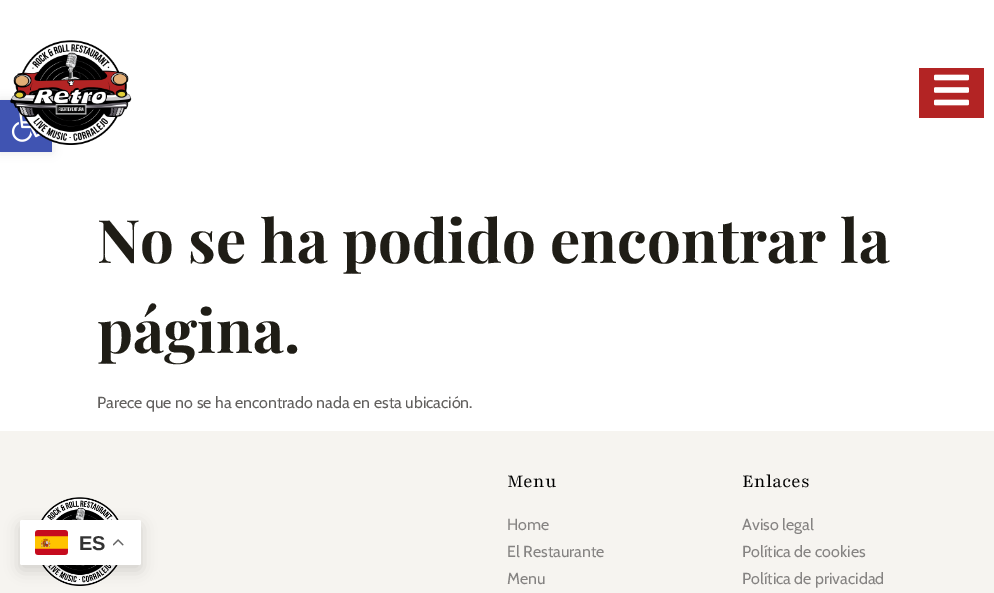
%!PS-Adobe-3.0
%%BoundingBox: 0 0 994 593
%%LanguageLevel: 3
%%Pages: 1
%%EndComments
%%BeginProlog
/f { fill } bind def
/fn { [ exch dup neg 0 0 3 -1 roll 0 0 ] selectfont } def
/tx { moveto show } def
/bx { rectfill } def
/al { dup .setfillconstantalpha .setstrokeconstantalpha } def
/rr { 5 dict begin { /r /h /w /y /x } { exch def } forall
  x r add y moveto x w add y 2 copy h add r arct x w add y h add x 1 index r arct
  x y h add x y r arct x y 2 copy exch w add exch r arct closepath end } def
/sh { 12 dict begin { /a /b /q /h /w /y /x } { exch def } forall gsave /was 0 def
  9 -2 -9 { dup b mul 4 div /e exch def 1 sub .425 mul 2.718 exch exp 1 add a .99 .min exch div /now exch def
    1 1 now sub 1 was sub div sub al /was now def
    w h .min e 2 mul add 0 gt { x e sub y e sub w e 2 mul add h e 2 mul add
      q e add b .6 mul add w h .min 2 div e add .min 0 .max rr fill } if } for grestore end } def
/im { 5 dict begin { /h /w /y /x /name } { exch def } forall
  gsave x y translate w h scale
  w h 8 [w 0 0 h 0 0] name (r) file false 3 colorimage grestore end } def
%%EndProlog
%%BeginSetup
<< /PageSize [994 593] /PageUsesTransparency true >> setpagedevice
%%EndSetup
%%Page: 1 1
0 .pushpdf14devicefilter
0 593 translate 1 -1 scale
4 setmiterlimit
1 setgray
0 0 994 593 bx
0 setgray
0 100 52 52 0 5 0.1 sh
0.251 0.329 0.698 setrgbcolor
0 100 52 52 bx
(image2.raw) 11 111 30 31 im
(image0.raw) 10 40 122 105 im
0.702 0.141 0.141 setrgbcolor
919 68 65 50 bx
(image1.raw) 934 74 35 32 im
/PlayfairDisplay-Bold 60 fn
0.122 0.114 0.086 setrgbcolor
(No se ha podido encontrar la) 97 263 tx
(página.) 97 353 tx
/Cabin-Regular 16 fn
0.384 0.376 0.369 setrgbcolor
(Parece que no se ha encontrado nada en esta ubicación.) 97 408 tx
0.965 0.957 0.941 setrgbcolor
0 431 994 162 bx
(image5.raw) 41 497 78 89 im
0 setgray
20 525 121 45 2 7.5 0.15 sh
1 setgray
20 520 121 45 2 rr f
(image3.raw) 35 530 33 25 im
/LiberationSans-Bold 20 fn
0.2 setgray
(ES) 79 550 tx
(image4.raw) 113 539 11 7 im
/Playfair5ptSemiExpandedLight-Regular 20 fn
0 setgray
(Menu) 507 487 tx
/Cabin-Regular 16 fn
0.522 0.514 0.51 setrgbcolor
(Home) 507 530 tx
(El Restaurante) 507 557 tx
(Menu) 507 584 tx
/Playfair5ptSemiExpandedLight-Regular 20 fn
0 setgray
(Enlaces) 742 487 tx
/Cabin-Regular 16 fn
0.522 0.514 0.51 setrgbcolor
(Aviso legal) 742 530 tx
(Política de cookies) 742 557 tx
(Política de privacidad) 742 584 tx
.poppdf14devicefilter showpage
%%EOF
